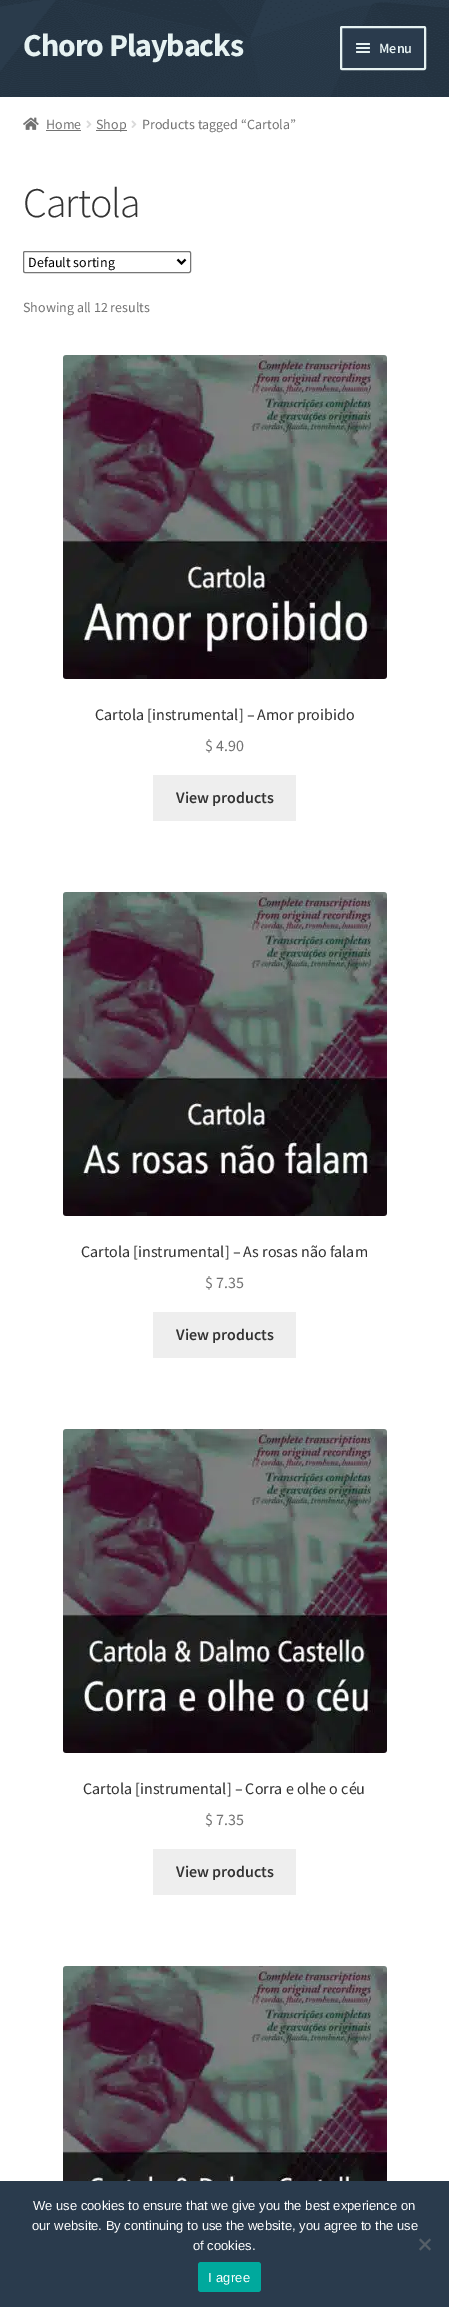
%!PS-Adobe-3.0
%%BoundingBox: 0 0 449 2307
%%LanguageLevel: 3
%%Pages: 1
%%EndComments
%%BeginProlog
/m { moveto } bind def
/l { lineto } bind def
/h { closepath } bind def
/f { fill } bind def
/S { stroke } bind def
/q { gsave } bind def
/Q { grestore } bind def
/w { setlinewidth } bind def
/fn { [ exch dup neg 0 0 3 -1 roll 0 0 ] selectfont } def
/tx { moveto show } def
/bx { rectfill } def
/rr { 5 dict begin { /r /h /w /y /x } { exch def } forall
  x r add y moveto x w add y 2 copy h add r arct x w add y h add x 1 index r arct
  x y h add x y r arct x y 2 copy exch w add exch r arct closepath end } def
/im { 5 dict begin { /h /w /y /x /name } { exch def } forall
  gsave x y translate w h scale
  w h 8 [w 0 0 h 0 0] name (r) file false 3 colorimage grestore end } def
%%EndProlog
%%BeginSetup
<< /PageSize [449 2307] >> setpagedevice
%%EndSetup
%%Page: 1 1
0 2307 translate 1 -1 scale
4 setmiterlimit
1 setgray
0 0 449 2307 bx
(image0.raw) 0 0 449 97 im
/SourceSansPro-Bold 32 fn
0.902 0.949 0.949 setrgbcolor
23 56 m -1 0 (Choro Playbacks) ashow
0.165 0.231 0.302 setrgbcolor
341 27 84 42 1 rr q f Q
0.902 0.949 0.949 setrgbcolor
2 w
S
356 43 14 2 1 rr f
356 47 14 2 1 rr f
/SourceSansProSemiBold-SemiBold 14 fn
(Menu) 379 53 tx
356 51 14 2 1 rr f
(image1.raw) 23 117 16 13 im
/SourceSansPro-Regular 14 fn
0.447 setgray
(Home) 46 129 tx
46 130 35 1 bx
(image2.raw) 86 120 6 8 im
96 130 31 1 bx
(Shop) 96 129 tx
(image2.raw) 131 120 6 8 im
(Products tagged “Cartola”) 142 129 tx
/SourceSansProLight-Light 42 fn
0.2 setgray
23 217 m -1 0 (Cartola) ashow
0.463 setgray
1 w
23.5 251.5 167 21 1.5 rr S
0 setgray
2 w
177.5 259.5 m 181.5 263.5 l 185.5 259.5 l S
/SourceSansPro-Regular 14 fn
(Default sorting) 28 267 tx
0.447 setgray
(Showing all 12 results) 23 312 tx
(image3.raw) 63 355 324 324 im
/SourceSansPro-Regular 16 fn
0.2 setgray
(Cartola [instrumental] – Amor proibido) 95 720 tx
0.447 setgray
($ 4.90) 205 751 tx
0.933 setgray
153 775 143 46 bx
/SourceSansProSemiBold-SemiBold 16 fn
0.2 setgray
(View products) 176 803 tx
(image4.raw) 63 892 324 324 im
/SourceSansPro-Regular 16 fn
(Cartola [instrumental] – As rosas não falam) 81 1257 tx
0.447 setgray
($ 7.35) 205 1288 tx
0.933 setgray
153 1312 143 46 bx
/SourceSansProSemiBold-SemiBold 16 fn
0.2 setgray
(View products) 176 1340 tx
(image5.raw) 63 1429 324 324 im
/SourceSansPro-Regular 16 fn
(Cartola [instrumental] – Corra e olhe o céu) 83 1794 tx
0.447 setgray
($ 7.35) 205 1825 tx
0.933 setgray
153 1849 143 46 bx
/SourceSansProSemiBold-SemiBold 16 fn
0.2 setgray
(View products) 176 1877 tx
(image6.raw) 63 1966 324 215 im
0.165 0.231 0.302 setrgbcolor
0 2181 449 126 bx
/LiberationSans-Regular 13 fn
1 setgray
(We use cookies to ensure that we give you the best experience on) 33 2210 tx
(our website. By continuing to use the website, you agree to the use) 32 2230 tx
(of cookies.) 193 2250 tx
0.333 0.369 0.404 setrgbcolor
429.5 2238.5 m 431 2240 l 420.5 2250.5 l 419 2249 l h f
419 2240 m 420.5 2238.5 l 431 2249 l 429.5 2250.5 l h f
0 0.663 0.616 setrgbcolor
198 2262 63 30 3 rr f
1 setgray
208 2282 m 0.25 0 (I agree) ashow
showpage
%%EOF
